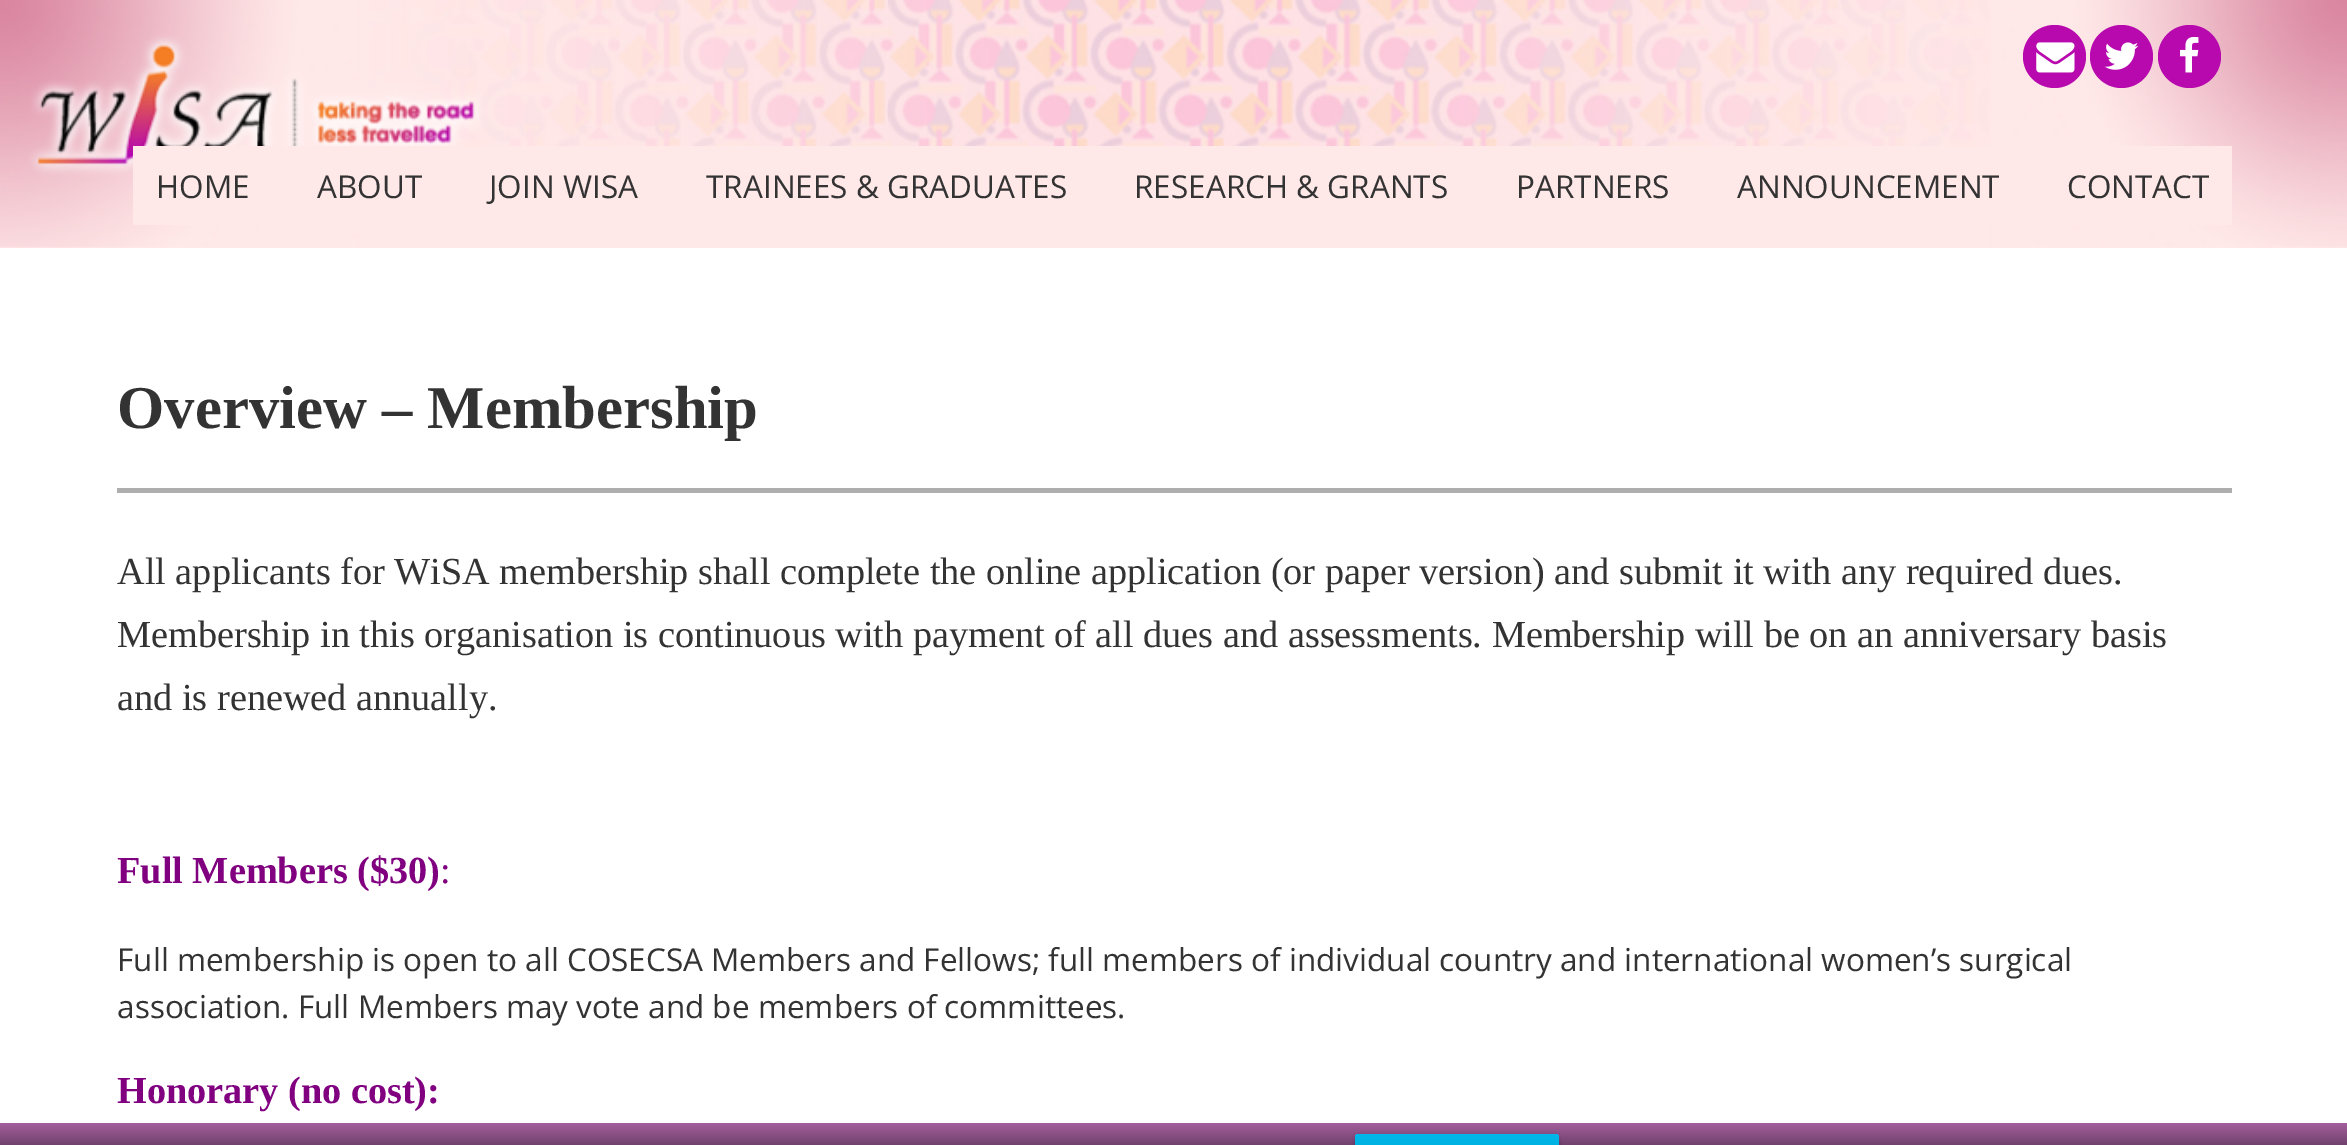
%!PS-Adobe-3.0
%%BoundingBox: 0 0 2347 1145
%%LanguageLevel: 3
%%Pages: 1
%%EndComments
%%BeginProlog
/m { moveto } bind def
/l { lineto } bind def
/c { curveto } bind def
/h { closepath } bind def
/f { fill } bind def
/q { gsave } bind def
/Q { grestore } bind def
/fn { [ exch dup neg 0 0 3 -1 roll 0 0 ] selectfont } def
/tx { moveto show } def
/bx { rectfill } def
/al { dup .setfillconstantalpha .setstrokeconstantalpha } def
/ci { newpath 0 360 arc closepath } def
/rr { 5 dict begin { /r /h /w /y /x } { exch def } forall
  x r add y moveto x w add y 2 copy h add r arct x w add y h add x 1 index r arct
  x y h add x y r arct x y 2 copy exch w add exch r arct closepath end } def
/sh { 12 dict begin { /a /b /q /h /w /y /x } { exch def } forall gsave /was 0 def
  9 -2 -9 { dup b mul 4 div /e exch def 1 sub .425 mul 2.718 exch exp 1 add a .99 .min exch div /now exch def
    1 1 now sub 1 was sub div sub al /was now def
    w h .min e 2 mul add 0 gt { x e sub y e sub w e 2 mul add h e 2 mul add
      q e add b .6 mul add w h .min 2 div e add .min 0 .max rr fill } if } for grestore end } def
/im { 5 dict begin { /h /w /y /x /name } { exch def } forall
  gsave x y translate w h scale
  w h 8 [w 0 0 h 0 0] name (r) file false 3 colorimage grestore end } def
%%EndProlog
%%BeginSetup
<< /PageSize [2347 1145] /PageUsesTransparency true >> setpagedevice
%%EndSetup
%%Page: 1 1
0 .pushpdf14devicefilter
0 1145 translate 1 -1 scale
4 setmiterlimit
1 setgray
0 0 2347 1145 bx
1 0.91 0.91 setrgbcolor
0 0 2347 248 bx
(image0.raw) 0 0 2347 248 im
0.718 0.035 0.678 setrgbcolor
2054.5 56.5 31.5 ci f
(image1.raw) 2036 42 39 31 im
2121.5 56.5 31.5 ci f
(image2.raw) 2104 42 35 28 im
2189.5 56.5 31.5 ci f
(image3.raw) 2180 37 19 36 im
1 0.91 0.91 setrgbcolor
133 146 2099 79 bx
/OpenSans-Regular 31.5 fn
0.2 setgray
(HOME) 156 198 tx
(ABOUT) 317 198 tx
(JOIN WISA) 489 198 tx
(TRAINEES & GRADUATES) 706 198 tx
(RESEARCH & GRANTS) 1134 198 tx
(PARTNERS) 1516 198 tx
(ANNOUNCEMENT) 1737 198 tx
(CONTACT) 2067 198 tx
0.682 setgray
117 488 2115 5 bx
/LiberationSerif-Bold 60.75 fn
0.2 setgray
(Overview – Membership) 117 428 tx
/LiberationSerif-Regular 38.25 fn
(All applicants for WiSA membership shall complete the online application \(or paper version\) and submit it with any required dues.) 117 584 tx
(Membership in this organisation is continuous with payment of all dues and assessments. Membership will be on an anniversary basis) 117 647 tx
(and is renewed annually.) 117 710 tx
/LiberationSerif-Bold 38.25 fn
0.502 0 0.502 setrgbcolor
(Full Members \($30\)) 117 883 tx
/LiberationSerif-Regular 38.25 fn
(:) 440 883 tx
/OpenSans-Regular 31.5 fn
0.2 setgray
(Full membership is open to all COSECSA Members and Fellows; full members of individual country and international women’s surgical) 117 971 tx
(association. Full Members may vote and be members of committees.) 117 1018 tx
/LiberationSerif-Bold 38.25 fn
0.502 0 0.502 setrgbcolor
(Honorary \(no cost\):) 117 1103 tx
q 0 1123 m 2347 1123 l 2347 1145 l 0 1145 l h clip newpath
<< /ShadingType 2 /ColorSpace /DeviceRGB /Coords [1175 1123 1175 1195] /Extend [true true] /Function << /FunctionType 2 /Domain [0 1] /C0 [0.639 0.373 0.616] /C1 [0 0 0] /N 1 >> >> shfill Q
0 setgray
1355 1136 204 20 5 2 0.2 sh
q 1360 1134 m 1554 1134 l 1557 1134 1559 1136 1559 1139 c 1559 1145 l 1355 1145 l 1355 1139 l 1355 1136 1357 1134 1360 1134 c h clip newpath
<< /ShadingType 2 /ColorSpace /DeviceRGB /Coords [1457 1134 1457 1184] /Extend [true true] /Function << /FunctionType 2 /Domain [0 1] /C0 [0 0.718 0.918] /C1 [0 0.62 0.765] /N 1 >> >> shfill Q
.poppdf14devicefilter showpage
%%EOF
